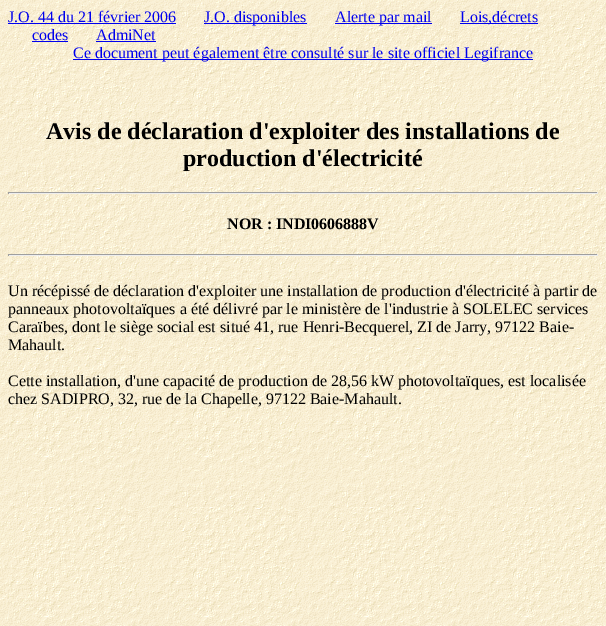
%!PS-Adobe-3.0
%%BoundingBox: 0 0 606 626
%%LanguageLevel: 3
%%Pages: 1
%%EndComments
%%BeginProlog
/fn { [ exch dup neg 0 0 3 -1 roll 0 0 ] selectfont } def
/tx { moveto show } def
/bx { rectfill } def
/im { 5 dict begin { /h /w /y /x /name } { exch def } forall
  gsave x y translate w h scale
  w h 8 [w 0 0 h 0 0] name (r) file false 3 colorimage grestore end } def
%%EndProlog
%%BeginSetup
<< /PageSize [606 626] >> setpagedevice
%%EndSetup
%%Page: 1 1
0 626 translate 1 -1 scale
4 setmiterlimit
1 setgray
0 0 606 626 bx
(image0.raw) 0 0 606 626 im
/LiberationSerif-Regular 16 fn
0 0 0.933 setrgbcolor
(J.O. 44 du 21 février 2006) 8 22 tx
8 23 168 1 bx
204 23 103 1 bx
(J.O. disponibles) 204 22 tx
335 23 97 1 bx
(Alerte par mail) 335 22 tx
460 23 78 1 bx
(Lois,décrets) 460 22 tx
(codes) 32 40 tx
32 41 36 1 bx
(AdmiNet) 96 40 tx
96 41 60 1 bx
73 59 460 1 bx
(Ce document peut également être consulté sur le site officiel Legifrance) 73 58 tx
/LiberationSerif-Bold 24 fn
0 setgray
(Avis de déclaration d'exploiter des installations de) 46 139 tx
(production d'électricité) 183 166 tx
0.624 setgray
8 192 590 1 bx
0.933 setgray
597 192 1 2 bx
8 193 590 1 bx
0.624 setgray
8 192 1 2 bx
/LiberationSerif-Bold 16 fn
0 setgray
(NOR : INDI0606888V) 227 229 tx
0.624 setgray
8 254 590 1 bx
0.933 setgray
597 254 1 2 bx
8 255 590 1 bx
0.624 setgray
8 254 1 2 bx
/LiberationSerif-Regular 16 fn
0 setgray
(Un récépissé de déclaration d'exploiter une installation de production d'électricité à partir de) 8 296 tx
(panneaux photovoltaïques a été délivré par le ministère de l'industrie à SOLELEC services) 8 314 tx
(Caraïbes, dont le siège social est situé 41, rue Henri-Becquerel, ZI de Jarry, 97122 Baie-) 8 332 tx
(Mahault.) 8 350 tx
(Cette installation, d'une capacité de production de 28,56 kW photovoltaïques, est localisée) 8 386 tx
(chez SADIPRO, 32, rue de la Chapelle, 97122 Baie-Mahault.) 8 404 tx
showpage
%%EOF
